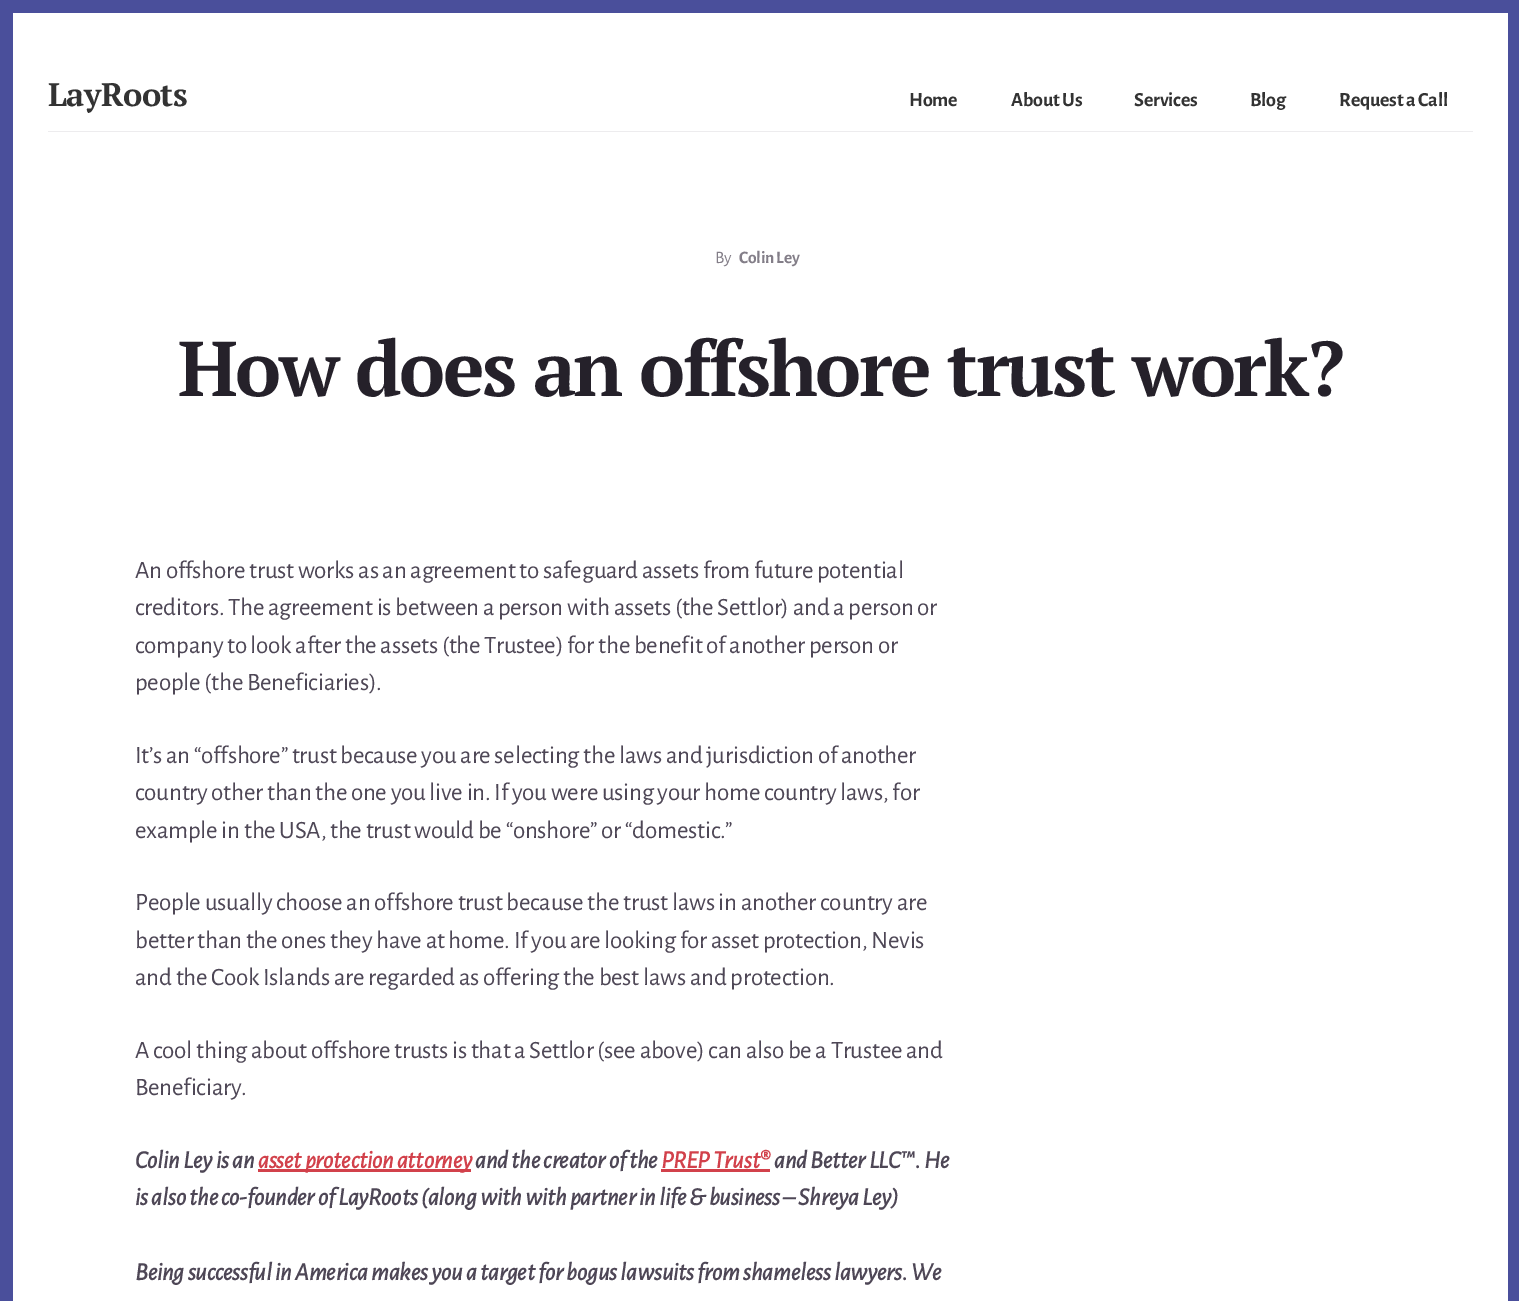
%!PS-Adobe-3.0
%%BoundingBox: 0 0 1519 1301
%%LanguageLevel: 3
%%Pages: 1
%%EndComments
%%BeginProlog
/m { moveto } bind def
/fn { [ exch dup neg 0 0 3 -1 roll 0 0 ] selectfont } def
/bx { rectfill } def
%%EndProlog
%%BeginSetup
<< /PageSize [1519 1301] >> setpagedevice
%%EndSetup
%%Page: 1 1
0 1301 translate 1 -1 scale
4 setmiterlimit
0.29 0.31 0.608 setrgbcolor
0 0 1519 1301 bx
1 setgray
13 13 1495 1288 bx
0.929 0.925 0.933 setrgbcolor
48 131 1425 1 bx
/PTSerif-Bold 32.5 fn
0.2 setgray
48 106 m -0.5 0 (LayRoots) ashow
/AlegreyaSans-Bold 20 fn
909 106 m -0.25 0 (Home) ashow
1011 106 m -0.25 0 (About Us) ashow
1134 106 m -0.25 0 (Services) ashow
1250 106 m -0.25 0 (Blog) ashow
1339 106 m -0.25 0 (Request a Call) ashow
/AlegreyaSans-Regular 17.5 fn
0.514 0.494 0.533 setrgbcolor
715 263 m -0.25 0 (By) ashow
/AlegreyaSans-Bold 17.5 fn
739 263 m -0.25 0 (Colin Ley) ashow
/PTSerif-Bold 77.5 fn
0.145 0.129 0.165 setrgbcolor
178 396 m -2.5 0 (How does an offshore trust work?) ashow
/AlegreyaSans-Regular 25 fn
0.306 0.278 0.337 setrgbcolor
135 578 m -0.25 0 (An offshore trust works as an agreement to safeguard assets from future potential) ashow
135 615 m -0.25 0 (creditors. The agreement is between a person with assets \(the Settlor\) and a person or) ashow
135 653 m -0.25 0 (company to look after the assets \(the Trustee\) for the benefit of another person or) ashow
135 690 m -0.25 0 (people \(the Beneficiaries\).) ashow
135 763 m -0.25 0 (It’s an “offshore” trust because you are selecting the laws and jurisdiction of another) ashow
135 800 m -0.25 0 (country other than the one you live in. If you were using your home country laws, for) ashow
135 838 m -0.25 0 (example in the USA, the trust would be “onshore” or “domestic.”) ashow
135 910 m -0.25 0 (People usually choose an offshore trust because the trust laws in another country are) ashow
135 948 m -0.25 0 (better than the ones they have at home. If you are looking for asset protection, Nevis) ashow
135 985 m -0.25 0 (and the Cook Islands are regarded as offering the best laws and protection.) ashow
135 1058 m -0.25 0 (A cool thing about offshore trusts is that a Settlor \(see above\) can also be a Trustee and) ashow
135 1095 m -0.25 0 (Beneficiary.) ashow
/AlegreyaSans-BoldItalic 25 fn
135 1168 m -0.25 0 (Colin Ley is an) ashow
0.824 0.255 0.294 setrgbcolor
258 1169 213 3 bx
258 1168 m -0.25 0 (asset protection attorney) ashow
0.306 0.278 0.337 setrgbcolor
475 1168 m -0.25 0 (and the creator of the) ashow
0.824 0.255 0.294 setrgbcolor
661 1169 109 3 bx
661 1168 m -0.25 0 (PREP Trust®) ashow
0.306 0.278 0.337 setrgbcolor
774 1168 m -0.25 0 (and Better LLC™. He) ashow
135 1205 m -0.25 0 (is also the co-founder of LayRoots \(along with with partner in life & business – Shreya Ley\)) ashow
135 1280 m -0.25 0 (Being successful in America makes you a target for bogus lawsuits from shameless lawyers. We) ashow
showpage
%%EOF
